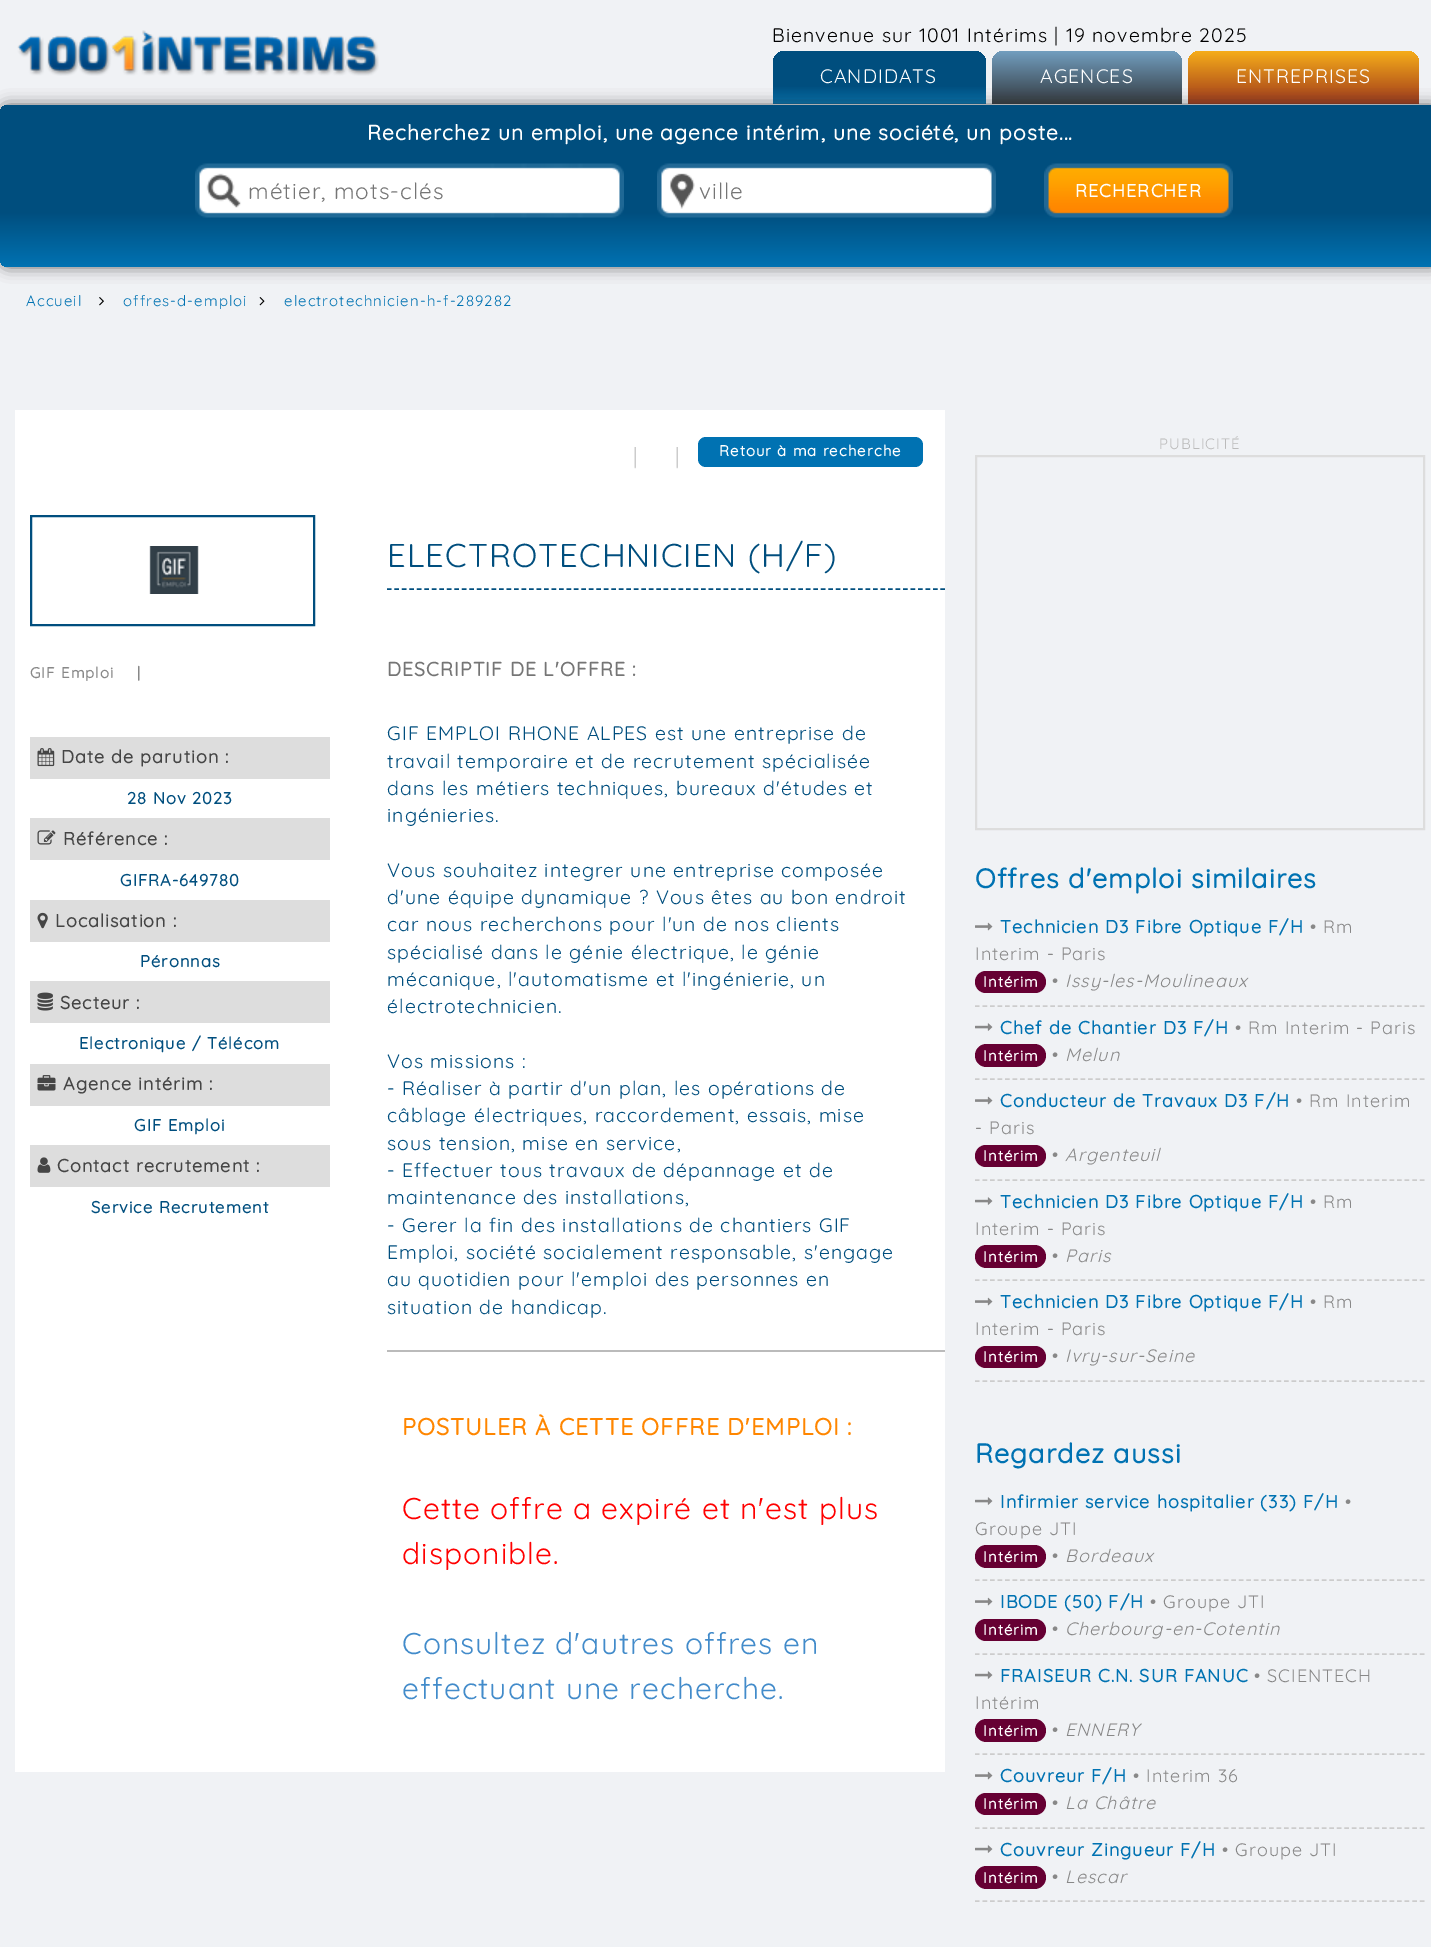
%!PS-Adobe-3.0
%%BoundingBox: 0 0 1431 1947
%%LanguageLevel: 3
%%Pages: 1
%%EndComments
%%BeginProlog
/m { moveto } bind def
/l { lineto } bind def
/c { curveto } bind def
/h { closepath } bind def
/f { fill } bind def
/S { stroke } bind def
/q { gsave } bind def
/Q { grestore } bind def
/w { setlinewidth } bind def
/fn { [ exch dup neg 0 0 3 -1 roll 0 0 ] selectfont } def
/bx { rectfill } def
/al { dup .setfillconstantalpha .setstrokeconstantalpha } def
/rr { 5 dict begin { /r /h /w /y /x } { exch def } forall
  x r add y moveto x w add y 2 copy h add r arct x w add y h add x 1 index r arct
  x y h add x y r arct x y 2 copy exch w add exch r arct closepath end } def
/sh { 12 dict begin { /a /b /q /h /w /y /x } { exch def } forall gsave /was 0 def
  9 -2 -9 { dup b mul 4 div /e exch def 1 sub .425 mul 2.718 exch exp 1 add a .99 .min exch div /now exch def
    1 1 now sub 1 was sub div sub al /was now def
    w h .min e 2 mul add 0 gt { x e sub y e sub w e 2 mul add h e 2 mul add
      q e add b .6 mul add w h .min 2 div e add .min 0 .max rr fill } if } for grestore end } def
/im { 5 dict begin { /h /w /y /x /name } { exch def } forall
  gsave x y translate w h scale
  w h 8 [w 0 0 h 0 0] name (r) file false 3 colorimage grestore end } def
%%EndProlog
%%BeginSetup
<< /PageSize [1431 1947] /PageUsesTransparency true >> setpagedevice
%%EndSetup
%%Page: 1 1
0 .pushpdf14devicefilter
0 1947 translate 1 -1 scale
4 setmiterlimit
0.941 0.949 0.961 setrgbcolor
0 0 1431 1947 bx
(image0.raw) 17 30 362 46 im
/Quicksand-Light 19.5 fn
0 setgray
772 42 m 1.05 0 (Bienvenue sur 1001 Intérims | 19 novembre 2025) ashow
q 785 51 m 974 51 l 980.5 51 986 56.5 986 63 c 986 104 l 773 104 l 773 63 l 773 56.5 778.5 51 785 51 c h clip newpath
<< /ShadingType 2 /ColorSpace /DeviceRGB /Coords [879 51 879 104] /Extend [true true] /Function << /FunctionType 3 /Domain [0 1] /Functions [<< /FunctionType 2 /Domain [0 1] /C0 [0 0.306 0.494] /C1 [0 0.306 0.494] /N 1 >> << /FunctionType 2 /Domain [0 1] /C0 [0 0.306 0.494] /C1 [0 0.447 0.698] /N 1 >>] /Bounds [0.66] /Encode [0 1 0 1] >> >> shfill Q
1 setgray
820 83 m 1.05 0 (CANDIDATS) ashow
q 1004 51 m 1170 51 l 1176.5 51 1182 56.5 1182 63 c 1182 104 l 992 104 l 992 63 l 992 56.5 997.5 51 1004 51 c h clip newpath
<< /ShadingType 2 /ColorSpace /DeviceRGB /Coords [1087 51 1087 104] /Extend [true true] /Function << /FunctionType 2 /Domain [0 1] /C0 [0.447 0.62 0.749] /C1 [0.2 0.227 0.251] /N 1 >> >> shfill Q
1040 83 m 1.05 0 (AGENCES) ashow
q 1200 51 m 1407 51 l 1413.5 51 1419 56.5 1419 63 c 1419 104 l 1188 104 l 1188 63 l 1188 56.5 1193.5 51 1200 51 c h clip newpath
<< /ShadingType 2 /ColorSpace /DeviceRGB /Coords [1304 51 1304 104] /Extend [true true] /Function << /FunctionType 2 /Domain [0 1] /C0 [0.965 0.678 0.102] /C1 [0.624 0.224 0.102] /N 1 >> >> shfill Q
1236 83 m 1.05 0 (ENTREPRISES) ashow
0.196 setgray
0 105 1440 162 8 7.5 0.7 sh
q 0 105 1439 162 8 rr clip newpath
<< /ShadingType 2 /ColorSpace /DeviceRGB /Coords [720 105 720 267] /Extend [true true] /Function << /FunctionType 3 /Domain [0 1] /Functions [<< /FunctionType 2 /Domain [0 1] /C0 [0 0.306 0.494] /C1 [0 0.306 0.494] /N 1 >> << /FunctionType 2 /Domain [0 1] /C0 [0 0.306 0.494] /C1 [0 0.447 0.698] /N 1 >>] /Bounds [0.66] /Encode [0 1 0 1] >> >> shfill Q
/Quicksand-Bold 21 fn
1 setgray
367 140 m 1.05 0 (Recherchez un emploi, une agence intérim, une société, un poste...) ashow
(image1.raw) 195 163 429 55 im
/Quicksand-Light 22.5 fn
0.459 setgray
248 199 m 1.05 0 (métier, mots-clés) ashow
(image2.raw) 657 163 339 55 im
699 199 m 1.05 0 (ville) ashow
(image3.raw) 1044 163 189 55 im
/Quicksand-Bold 18 fn
1 setgray
1075 197 m 1.05 0 (RECHERCHER) ashow
/Quicksand-Light 15 fn
0 0.447 0.698 setrgbcolor
26 306 m 1.05 0 (Accueil) ashow
(image4.raw) 99 297 5 9 im
123 306 m 1.05 0 (offres-d-emploi) ashow
(image5.raw) 259 297 6 9 im
284 306 m 1.05 0 (electrotechnicien-h-f-289282) ashow
1 setgray
15 410 930 1362 bx
(image6.raw) 634 447 2 22 im
(image6.raw) 676 447 2 22 im
0 0.447 0.698 setrgbcolor
698 437 225 30 8 rr f
/Quicksand-Bold 15 fn
1 setgray
719 456 m 1.05 0 (Retour à ma recherche) ashow
0 0.306 0.494 setrgbcolor
2 w
31 516 283 109 rectstroke
(image7.raw) 149 546 50 48 im
1.5 w
[4.5 2.98] 0 setdash
387 589 m 945 589 l S
/Quicksand-Light 33 fn
387 567 m 1.05 0 (ELECTROTECHNICIEN \(H/F\)) ashow
/Quicksand-Bold 15 fn
0.533 setgray
30 678 m 1.05 0 (GIF Emploi) ashow
137 678 m 1.05 0 (|) ashow
0.867 setgray
30 737 300 42 bx
(image8.raw) 37 748 18 19 im
/Quicksand-Bold 18 fn
0.271 setgray
61 763 m 1.05 0 (Date de parution :) ashow
/Quicksand-Bold 16.5 fn
0 0.306 0.494 setrgbcolor
127 804 m 1.05 0 (28 Nov 2023) ashow
0.867 setgray
30 818 300 42 bx
(image9.raw) 37 830 19 15 im
/Quicksand-Bold 18 fn
0.271 setgray
63 845 m 1.05 0 (Référence :) ashow
/Quicksand-Bold 16.5 fn
0 0.306 0.494 setrgbcolor
120 886 m 1.05 0 (GIFRA-649780) ashow
0.867 setgray
30 900 300 42 bx
(image10.raw) 37 912 11 17 im
/Quicksand-Bold 18 fn
0.271 setgray
55 927 m 1.05 0 (Localisation :) ashow
/Quicksand-Bold 16.5 fn
0 0.306 0.494 setrgbcolor
140 967 m 1.05 0 (Péronnas) ashow
0.867 setgray
30 981 300 42 bx
(image11.raw) 37 992 16 19 im
/Quicksand-Bold 18 fn
0.271 setgray
60 1009 m 1.05 0 (Secteur :) ashow
/Quicksand-Bold 16.5 fn
0 0.306 0.494 setrgbcolor
79 1049 m 1.05 0 (Electronique / Télécom) ashow
0.867 setgray
30 1064 300 42 bx
(image12.raw) 37 1075 19 16 im
/Quicksand-Bold 18 fn
0.271 setgray
63 1090 m 1.05 0 (Agence intérim :) ashow
/Quicksand-Bold 16.5 fn
0 0.306 0.494 setrgbcolor
134 1131 m 1.05 0 (GIF Emploi) ashow
0.867 setgray
30 1145 300 42 bx
(image13.raw) 37 1157 14 16 im
/Quicksand-Bold 18 fn
0.271 setgray
57 1172 m 1.05 0 (Contact recrutement :) ashow
/Quicksand-Bold 16.5 fn
0 0.306 0.494 setrgbcolor
91 1213 m 1.05 0 (Service Recrutement) ashow
0.733 setgray
387 1350 558 2 bx
/Quicksand-Bold 19.5 fn
0.459 setgray
387 676 m 1.05 0 (DESCRIPTIF DE L'OFFRE :) ashow
/Quicksand-Light 19.5 fn
0 0.306 0.494 setrgbcolor
387 740 m 1.05 0 (GIF EMPLOI RHONE ALPES est une entreprise de) ashow
387 768 m 1.05 0 (travail temporaire et de recrutement spécialisée) ashow
387 795 m 1.05 0 (dans les métiers techniques, bureaux d'études et) ashow
387 822 m 1.05 0 (ingénieries.) ashow
387 877 m 1.05 0 (Vous souhaitez integrer une entreprise composée) ashow
387 904 m 1.05 0 (d'une équipe dynamique ? Vous êtes au bon endroit) ashow
387 931 m 1.05 0 (car nous recherchons pour l'un de nos clients) ashow
387 959 m 1.05 0 (spécialisé dans le génie électrique, le génie) ashow
387 986 m 1.05 0 (mécanique, l'automatisme et l'ingénierie, un) ashow
387 1013 m 1.05 0 (électrotechnicien.) ashow
387 1068 m 1.05 0 (Vos missions :) ashow
387 1095 m 1.05 0 (- Réaliser à partir d'un plan, les opérations de) ashow
387 1122 m 1.05 0 (câblage électriques, raccordement, essais, mise) ashow
387 1150 m 1.05 0 (sous tension, mise en service,) ashow
387 1177 m 1.05 0 (- Effectuer tous travaux de dépannage et de) ashow
387 1204 m 1.05 0 (maintenance des installations,) ashow
387 1232 m 1.05 0 (- Gerer la fin des installations de chantiers GIF) ashow
387 1259 m 1.05 0 (Emploi, société socialement responsable, s'engage) ashow
387 1286 m 1.05 0 (au quotidien pour l'emploi des personnes en) ashow
387 1314 m 1.05 0 (situation de handicap.) ashow
/Quicksand-Bold 23.4 fn
1 0.525 0 setrgbcolor
402 1435 m 1.05 0 (POSTULER À CETTE OFFRE D'EMPLOI :) ashow
/Quicksand-Light 30 fn
1 0 0 setrgbcolor
402 1519 m 1.05 0 (Cette offre a expiré et n'est plus) ashow
402 1564 m 1.05 0 (disponible.) ashow
0.259 0.545 0.792 setrgbcolor
402 1654 m 1.05 0 (Consultez d'autres offres en) ashow
402 1699 m 1.05 0 (effectuant une recherche.) ashow
/Quicksand-Light 15 fn
0.733 setgray
1159 449 m 1.05 0 (PUBLICITÉ) ashow
0.867 setgray
2 w
[] 0 setdash
976 456 448 373 rectstroke
/Quicksand-Bold 27 fn
0 0.447 0.698 setrgbcolor
975 888 m 1.05 0 (Offres d'emploi similaires) ashow
0.8 setgray
1.5 w
[4.5 3.04] 0 setdash
975 1006 m 1425 1006 l S
(image14.raw) 975 922 18 9 im
/Quicksand-Bold 18 fn
0 0.447 0.698 setrgbcolor
1000 933 m 1.05 0 (Technicien D3 Fibre Optique F/H) ashow
/Quicksand-Light 18 fn
0.533 setgray
1310 933 m 1.05 0 (• Rm) ashow
975 960 m 1.05 0 (Interim - Paris) ashow
0.4 0 0.2 setrgbcolor
975 971 71 22 11 rr f
/Quicksand-Bold 15 fn
1 setgray
983 987 m 1.05 0 (Intérim) ashow
/Quicksand-Light 18 fn
0.533 setgray
1052 987 m 1.05 0 (•) ashow
/Quicksand-LightItalic 18 fn
1065 987 m 1.05 0 (Issy-les-Moulineaux) ashow
0.8 setgray
975 1079 m 1425 1079 l S
(image15.raw) 975 1023 18 8 im
/Quicksand-Bold 18 fn
0 0.447 0.698 setrgbcolor
1000 1034 m 1.05 0 (Chef de Chantier D3 F/H) ashow
/Quicksand-Light 18 fn
0.533 setgray
1235 1034 m 1.05 0 (• Rm Interim - Paris) ashow
0.4 0 0.2 setrgbcolor
975 1044 71 23 11.5 rr f
/Quicksand-Bold 15 fn
1 setgray
983 1061 m 1.05 0 (Intérim) ashow
/Quicksand-Light 18 fn
0.533 setgray
1052 1061 m 1.05 0 (•) ashow
/Quicksand-LightItalic 18 fn
1065 1061 m 1.05 0 (Melun) ashow
0.8 setgray
975 1180 m 1425 1180 l S
(image14.raw) 975 1096 18 9 im
/Quicksand-Bold 18 fn
0 0.447 0.698 setrgbcolor
1000 1107 m 1.05 0 (Conducteur de Travaux D3 F/H) ashow
/Quicksand-Light 18 fn
0.533 setgray
1296 1107 m 1.05 0 (• Rm Interim) ashow
975 1134 m 1.05 0 (- Paris) ashow
0.4 0 0.2 setrgbcolor
975 1145 71 22 11 rr f
/Quicksand-Bold 15 fn
1 setgray
983 1161 m 1.05 0 (Intérim) ashow
/Quicksand-Light 18 fn
0.533 setgray
1052 1161 m 1.05 0 (•) ashow
/Quicksand-LightItalic 18 fn
1065 1161 m 1.05 0 (Argenteuil) ashow
0.8 setgray
975 1280 m 1425 1280 l S
(image15.raw) 975 1197 18 8 im
/Quicksand-Bold 18 fn
0 0.447 0.698 setrgbcolor
1000 1208 m 1.05 0 (Technicien D3 Fibre Optique F/H) ashow
/Quicksand-Light 18 fn
0.533 setgray
1310 1208 m 1.05 0 (• Rm) ashow
975 1235 m 1.05 0 (Interim - Paris) ashow
0.4 0 0.2 setrgbcolor
975 1245 71 23 11.5 rr f
/Quicksand-Bold 15 fn
1 setgray
983 1262 m 1.05 0 (Intérim) ashow
/Quicksand-Light 18 fn
0.533 setgray
1052 1262 m 1.05 0 (•) ashow
/Quicksand-LightItalic 18 fn
1065 1262 m 1.05 0 (Paris) ashow
0.8 setgray
975 1381 m 1425 1381 l S
(image14.raw) 975 1297 18 9 im
/Quicksand-Bold 18 fn
0 0.447 0.698 setrgbcolor
1000 1308 m 1.05 0 (Technicien D3 Fibre Optique F/H) ashow
/Quicksand-Light 18 fn
0.533 setgray
1310 1308 m 1.05 0 (• Rm) ashow
975 1335 m 1.05 0 (Interim - Paris) ashow
0.4 0 0.2 setrgbcolor
975 1346 71 22 11 rr f
/Quicksand-Bold 15 fn
1 setgray
983 1362 m 1.05 0 (Intérim) ashow
/Quicksand-Light 18 fn
0.533 setgray
1052 1362 m 1.05 0 (•) ashow
/Quicksand-LightItalic 18 fn
1065 1362 m 1.05 0 (Ivry-sur-Seine) ashow
/Quicksand-Bold 27 fn
0 0.447 0.698 setrgbcolor
975 1463 m 1.05 0 (Regardez aussi) ashow
0.8 setgray
975 1580 m 1425 1580 l S
(image15.raw) 975 1497 18 8 im
/Quicksand-Bold 18 fn
0 0.447 0.698 setrgbcolor
1000 1508 m 1.05 0 (Infirmier service hospitalier \(33\) F/H) ashow
/Quicksand-Light 18 fn
0.533 setgray
1345 1508 m 1.05 0 (•) ashow
975 1535 m 1.05 0 (Groupe JTI) ashow
0.4 0 0.2 setrgbcolor
975 1545 71 23 11.5 rr f
/Quicksand-Bold 15 fn
1 setgray
983 1562 m 1.05 0 (Intérim) ashow
/Quicksand-Light 18 fn
0.533 setgray
1052 1562 m 1.05 0 (•) ashow
/Quicksand-LightItalic 18 fn
1065 1562 m 1.05 0 (Bordeaux) ashow
0.8 setgray
975 1654 m 1425 1654 l S
(image14.raw) 975 1597 18 9 im
/Quicksand-Bold 18 fn
0 0.447 0.698 setrgbcolor
1000 1608 m 1.05 0 (IBODE \(50\) F/H) ashow
/Quicksand-Light 18 fn
0.533 setgray
1150 1608 m 1.05 0 (• Groupe JTI) ashow
0.4 0 0.2 setrgbcolor
975 1619 71 22 11 rr f
/Quicksand-Bold 15 fn
1 setgray
983 1635 m 1.05 0 (Intérim) ashow
/Quicksand-Light 18 fn
0.533 setgray
1052 1635 m 1.05 0 (•) ashow
/Quicksand-LightItalic 18 fn
1065 1635 m 1.05 0 (Cherbourg-en-Cotentin) ashow
0.8 setgray
975 1754 m 1425 1754 l S
(image15.raw) 975 1671 18 8 im
/Quicksand-Bold 18 fn
0 0.447 0.698 setrgbcolor
1000 1682 m 1.05 0 (FRAISEUR C.N. SUR FANUC) ashow
/Quicksand-Light 18 fn
0.533 setgray
1254 1682 m 1.05 0 (• SCIENTECH) ashow
975 1709 m 1.05 0 (Intérim) ashow
0.4 0 0.2 setrgbcolor
975 1719 71 23 11.5 rr f
/Quicksand-Bold 15 fn
1 setgray
983 1736 m 1.05 0 (Intérim) ashow
/Quicksand-Light 18 fn
0.533 setgray
1052 1736 m 1.05 0 (•) ashow
/Quicksand-LightItalic 18 fn
1065 1736 m 1.05 0 (ENNERY) ashow
0.8 setgray
975 1828 m 1425 1828 l S
(image14.raw) 975 1771 18 9 im
/Quicksand-Bold 18 fn
0 0.447 0.698 setrgbcolor
1000 1782 m 1.05 0 (Couvreur F/H) ashow
/Quicksand-Light 18 fn
0.533 setgray
1133 1782 m 1.05 0 (• Interim 36) ashow
0.4 0 0.2 setrgbcolor
975 1793 71 22 11 rr f
/Quicksand-Bold 15 fn
1 setgray
983 1809 m 1.05 0 (Intérim) ashow
/Quicksand-Light 18 fn
0.533 setgray
1052 1809 m 1.05 0 (•) ashow
/Quicksand-LightItalic 18 fn
1065 1809 m 1.05 0 (La Châtre) ashow
0.8 setgray
975 1901 m 1425 1901 l S
(image15.raw) 975 1845 18 8 im
/Quicksand-Bold 18 fn
0 0.447 0.698 setrgbcolor
1000 1856 m 1.05 0 (Couvreur Zingueur F/H) ashow
/Quicksand-Light 18 fn
0.533 setgray
1222 1856 m 1.05 0 (• Groupe JTI) ashow
0.4 0 0.2 setrgbcolor
975 1866 71 23 11.5 rr f
/Quicksand-Bold 15 fn
1 setgray
983 1883 m 1.05 0 (Intérim) ashow
/Quicksand-Light 18 fn
0.533 setgray
1052 1883 m 1.05 0 (•) ashow
/Quicksand-LightItalic 18 fn
1065 1883 m 1.05 0 (Lescar) ashow
.poppdf14devicefilter showpage
%%EOF
